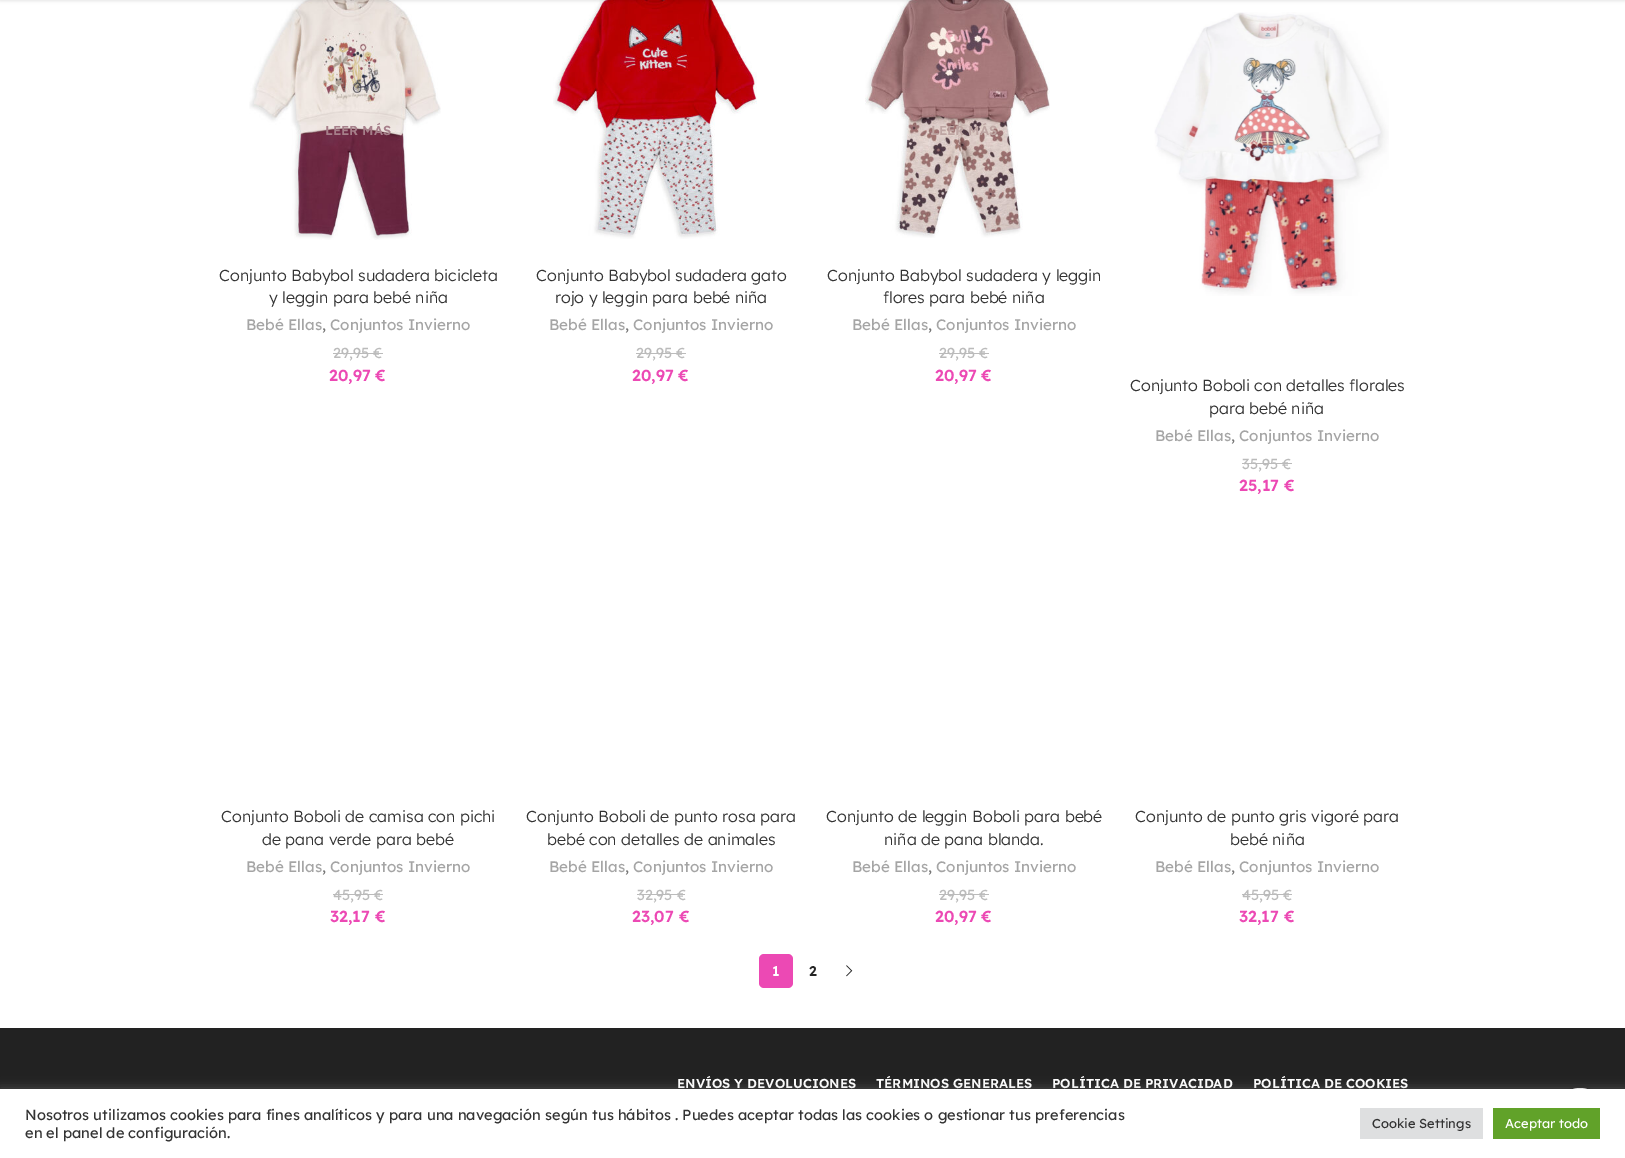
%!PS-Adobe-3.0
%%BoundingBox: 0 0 1625 1158
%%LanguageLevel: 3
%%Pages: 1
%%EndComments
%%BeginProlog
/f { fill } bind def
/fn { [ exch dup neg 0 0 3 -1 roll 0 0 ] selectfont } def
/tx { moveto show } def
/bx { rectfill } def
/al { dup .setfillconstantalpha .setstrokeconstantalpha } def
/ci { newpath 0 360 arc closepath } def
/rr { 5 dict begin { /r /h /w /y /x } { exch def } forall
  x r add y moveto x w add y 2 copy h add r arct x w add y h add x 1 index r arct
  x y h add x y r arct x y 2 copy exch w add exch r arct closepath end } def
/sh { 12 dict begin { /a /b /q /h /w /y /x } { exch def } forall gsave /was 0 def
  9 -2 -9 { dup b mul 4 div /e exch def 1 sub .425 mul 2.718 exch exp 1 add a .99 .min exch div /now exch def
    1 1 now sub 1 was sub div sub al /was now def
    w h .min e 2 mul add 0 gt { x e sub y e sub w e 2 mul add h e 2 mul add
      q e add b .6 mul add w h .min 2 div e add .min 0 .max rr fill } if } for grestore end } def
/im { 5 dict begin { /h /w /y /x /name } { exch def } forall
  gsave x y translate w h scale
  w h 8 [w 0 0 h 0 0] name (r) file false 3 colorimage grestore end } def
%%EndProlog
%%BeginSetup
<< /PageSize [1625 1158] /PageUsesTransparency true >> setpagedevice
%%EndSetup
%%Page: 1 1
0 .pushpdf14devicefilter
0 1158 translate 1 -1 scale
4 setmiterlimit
1 setgray
0 0 1625 1158 bx
(image0.raw) 249 0 192 240 im
(image1.raw) 553 0 204 239 im
(image2.raw) 865 0 185 238 im
0 setgray
0 -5 1625 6 0 1.5 0.1 sh
/Lexend-SemiBold 13 fn
0.651 0.498 0.541 setrgbcolor
(LEER MÁS) 325 135 tx
/Lexend-Light 16 fn
0.2 setgray
(Conjunto Babybol sudadera bicicleta) 219 281 tx
(y leggin para bebé niña) 269 303 tx
/Lexend-Regular 15.25 fn
0.647 setgray
(Bebé Ellas) 246 330 tx
0.467 setgray
(,) 322 330 tx
0.647 setgray
(Conjuntos Invierno) 330 330 tx
/Lexend-Regular 14.5 fn
0.733 setgray
(29,95 €) 333 358 tx
333 353 50 1 bx
/Lexend-SemiBold 16 fn
0.925 0.286 0.706 setrgbcolor
(20,97 €) 329 381 tx
/Lexend-Light 16 fn
0.2 setgray
(Conjunto Babybol sudadera gato) 536 281 tx
(rojo y leggin para bebé niña) 555 303 tx
/Lexend-Regular 15.25 fn
0.647 setgray
(Bebé Ellas) 549 330 tx
0.467 setgray
(,) 625 330 tx
0.647 setgray
(Conjuntos Invierno) 633 330 tx
/Lexend-Regular 14.5 fn
0.733 setgray
(29,95 €) 636 358 tx
636 353 50 1 bx
/Lexend-SemiBold 16 fn
0.925 0.286 0.706 setrgbcolor
(20,97 €) 632 381 tx
/Lexend-SemiBold 13 fn
0.745 0.651 0.639 setrgbcolor
(LEER MÁS) 931 135 tx
/Lexend-Light 16 fn
0.2 setgray
(Conjunto Babybol sudadera y leggin) 827 281 tx
(flores para bebé niña) 883 303 tx
/Lexend-Regular 15.25 fn
0.647 setgray
(Bebé Ellas) 852 330 tx
0.467 setgray
(,) 928 330 tx
0.647 setgray
(Conjuntos Invierno) 936 330 tx
/Lexend-Regular 14.5 fn
0.733 setgray
(29,95 €) 939 358 tx
939 353 50 1 bx
/Lexend-SemiBold 16 fn
0.925 0.286 0.706 setrgbcolor
(20,97 €) 935 381 tx
(image3.raw) 1154 12 235 284 im
/Lexend-Light 16 fn
0.2 setgray
(Conjunto Boboli con detalles florales) 1130 391 tx
(para bebé niña) 1209 414 tx
/Lexend-Regular 15.25 fn
0.647 setgray
(Bebé Ellas) 1155 441 tx
0.467 setgray
(,) 1231 441 tx
0.647 setgray
(Conjuntos Invierno) 1239 441 tx
/Lexend-Regular 14.5 fn
0.733 setgray
(35,95 €) 1242 469 tx
1242 463 50 1 bx
/Lexend-SemiBold 16 fn
0.925 0.286 0.706 setrgbcolor
(25,17 €) 1239 491 tx
/Lexend-Light 16 fn
0.2 setgray
(Conjunto Boboli de camisa con pichi) 221 822 tx
(de pana verde para bebé) 262 845 tx
/Lexend-Regular 15.25 fn
0.647 setgray
(Bebé Ellas) 246 872 tx
0.467 setgray
(,) 322 872 tx
0.647 setgray
(Conjuntos Invierno) 330 872 tx
/Lexend-Regular 14.5 fn
0.733 setgray
(45,95 €) 333 900 tx
333 894 50 1 bx
/Lexend-SemiBold 16 fn
0.925 0.286 0.706 setrgbcolor
(32,17 €) 330 922 tx
/Lexend-Light 16 fn
0.2 setgray
(Conjunto Boboli de punto rosa para) 526 822 tx
(bebé con detalles de animales) 547 845 tx
/Lexend-Regular 15.25 fn
0.647 setgray
(Bebé Ellas) 549 872 tx
0.467 setgray
(,) 625 872 tx
0.647 setgray
(Conjuntos Invierno) 633 872 tx
/Lexend-Regular 14.5 fn
0.733 setgray
(32,95 €) 637 900 tx
637 894 48 1 bx
/Lexend-SemiBold 16 fn
0.925 0.286 0.706 setrgbcolor
(23,07 €) 632 922 tx
/Lexend-Light 16 fn
0.2 setgray
(Conjunto de leggin Boboli para bebé) 826 822 tx
(niña de pana blanda.) 884 845 tx
/Lexend-Regular 15.25 fn
0.647 setgray
(Bebé Ellas) 852 872 tx
0.467 setgray
(,) 928 872 tx
0.647 setgray
(Conjuntos Invierno) 936 872 tx
/Lexend-Regular 14.5 fn
0.733 setgray
(29,95 €) 939 900 tx
939 894 50 1 bx
/Lexend-SemiBold 16 fn
0.925 0.286 0.706 setrgbcolor
(20,97 €) 935 922 tx
/Lexend-Light 16 fn
0.2 setgray
(Conjunto de punto gris vigoré para) 1135 822 tx
(bebé niña) 1230 845 tx
/Lexend-Regular 15.25 fn
0.647 setgray
(Bebé Ellas) 1155 872 tx
0.467 setgray
(,) 1231 872 tx
0.647 setgray
(Conjuntos Invierno) 1239 872 tx
/Lexend-Regular 14.5 fn
0.733 setgray
(45,95 €) 1242 900 tx
1242 894 50 1 bx
/Lexend-SemiBold 16 fn
0.925 0.286 0.706 setrgbcolor
(32,17 €) 1239 922 tx
759 954 34 34 5 rr f
/Lexend-SemiBold 14 fn
1 setgray
(1) 772 976 tx
0.141 setgray
(2) 809 976 tx
(image4.raw) 846 965 7 12 im
0.133 setgray
0 1028 1625 61 bx
/Lexend-SemiBold 13 fn
1 setgray
(ENVÍOS Y DEVOLUCIONES) 677 1088 tx
(TÉRMINOS GENERALES) 876 1088 tx
(POLÍTICA DE PRIVACIDAD) 1052 1088 tx
(POLÍTICA DE COOKIES) 1253 1088 tx
0 setgray
1555 1088 50 50 25 2.5 0.17 sh
0.914 setgray
1580 1113 25 ci f
0.675 0.671 0.671 setrgbcolor
0 1088 1625 69 0 5 0.3 sh
1 setgray
0 1089 1625 69 bx
/Lexend-Regular 14.67 fn
0.2 setgray
(Nosotros utilizamos cookies para fines analíticos y para una navegación según tus hábitos . Puedes aceptar todas las cookies o gestionar tus preferencias) 25 1120 tx
(en el panel de configuración.) 25 1138 tx
0.871 0.875 0.878 setrgbcolor
1360 1108 123 31 bx
/Lexend-Regular 13 fn
0.2 setgray
(Cookie Settings) 1372 1128 tx
0.38 0.635 0.161 setrgbcolor
1493 1108 107 31 bx
1 setgray
(Aceptar todo) 1505 1128 tx
.poppdf14devicefilter showpage
%%EOF
